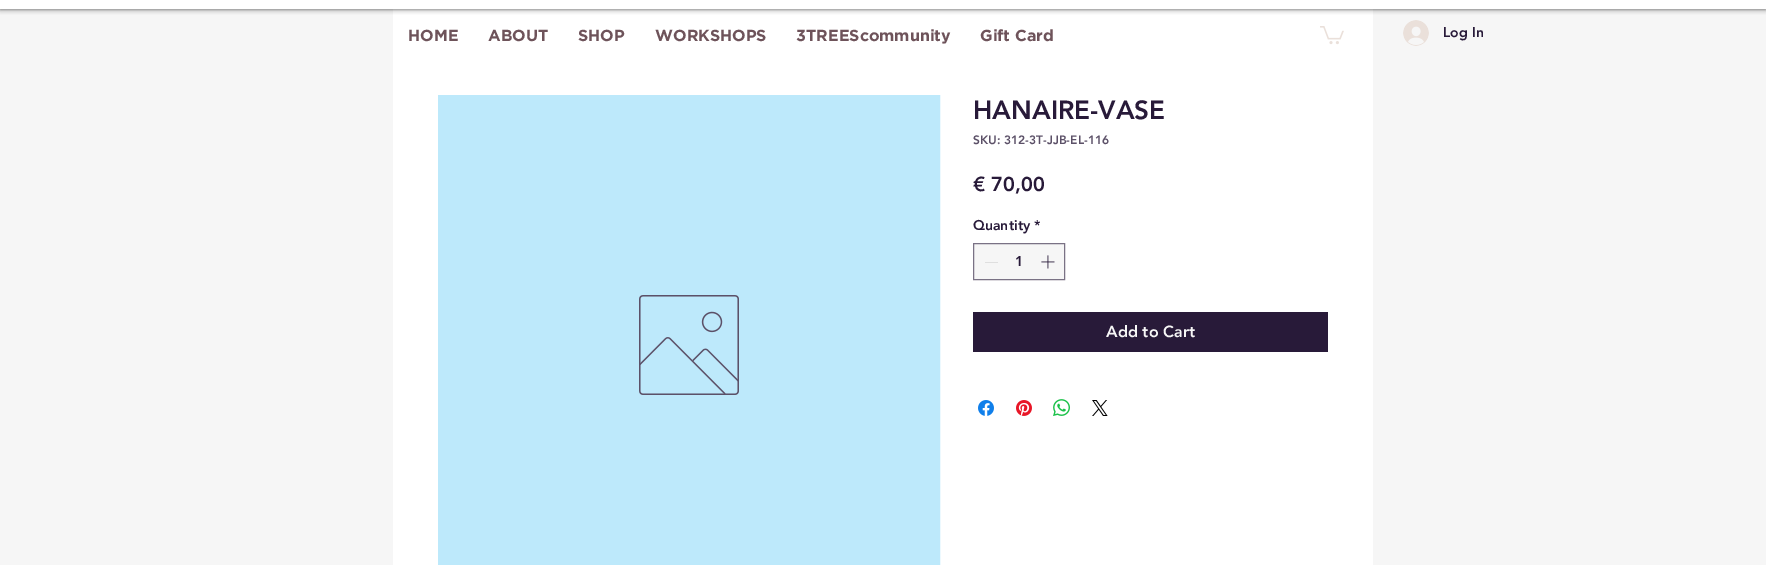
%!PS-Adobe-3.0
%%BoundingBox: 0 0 1766 565
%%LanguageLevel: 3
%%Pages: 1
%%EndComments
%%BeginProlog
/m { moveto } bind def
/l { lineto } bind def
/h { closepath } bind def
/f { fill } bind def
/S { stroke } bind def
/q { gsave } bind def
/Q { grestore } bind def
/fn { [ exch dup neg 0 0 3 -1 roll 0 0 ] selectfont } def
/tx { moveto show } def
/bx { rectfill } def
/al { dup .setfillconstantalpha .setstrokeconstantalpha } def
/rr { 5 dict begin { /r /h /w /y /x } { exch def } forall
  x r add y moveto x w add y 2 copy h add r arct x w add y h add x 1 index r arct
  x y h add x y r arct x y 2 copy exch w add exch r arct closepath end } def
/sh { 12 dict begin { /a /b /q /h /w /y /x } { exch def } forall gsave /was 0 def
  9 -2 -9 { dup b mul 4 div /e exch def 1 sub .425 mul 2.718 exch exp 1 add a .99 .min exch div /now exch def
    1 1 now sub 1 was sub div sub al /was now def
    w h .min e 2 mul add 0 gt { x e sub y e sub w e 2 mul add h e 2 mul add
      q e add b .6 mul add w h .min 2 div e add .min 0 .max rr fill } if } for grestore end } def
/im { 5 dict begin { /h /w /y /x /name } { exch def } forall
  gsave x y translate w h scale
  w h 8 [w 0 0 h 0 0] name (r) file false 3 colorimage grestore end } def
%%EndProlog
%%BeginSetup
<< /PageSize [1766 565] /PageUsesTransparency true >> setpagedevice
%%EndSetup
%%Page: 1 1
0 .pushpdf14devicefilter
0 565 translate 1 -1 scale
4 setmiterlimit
0.965 setgray
0 0 1766 565 bx
1 setgray
393 9 980 556 bx
0 setgray
0 0 1766 9 0 2.5 0.7 sh
1 setgray
0 0 1766 9 bx
/Gotham-Bold 16 fn
0.431 0.325 0.353 setrgbcolor
(HOME) 408 41 tx
(ABOUT) 488 41 tx
(SHOP) 578 41 tx
(WORKSHOPS) 655 41 tx
(3TREEScommunity) 796 41 tx
(Gift Card) 980 41 tx
(image0.raw) 1320 26 24 19 im
(image1.raw) 1403 20 26 26 im
/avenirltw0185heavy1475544-Black 14 fn
0.157 0.102 0.224 setrgbcolor
(Log In) 1443 37 tx
0.741 0.914 0.984 setrgbcolor
438.5 95.5 501 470 rectstroke
439 96 500 469 bx
(image2.raw) 639 295 100 100 im
/avenirltw0185heavy1475544-Black 26 fn
0.157 0.102 0.224 setrgbcolor
(HANAIRE-VASE) 973 119 tx
/avenirltw0185heavy1475544-Black 12 fn
0.361 0.318 0.408 setrgbcolor
(SKU: 312-3T-JJB-EL-116) 973 144 tx
/avenirltw0185heavy1475544-Black 20 fn
0.157 0.102 0.224 setrgbcolor
(€ 70,00) 973 191 tx
/avenirltw0185heavy1475544-Black 14 fn
(Quantity *) 973 230 tx
0.965 setgray
973.5 243.5 m 1064.5 243.5 l 1064.5 279.5 l 973.5 279.5 l h q f Q
0.478 0.447 0.522 setrgbcolor
S
0.875 setgray
985 262 13 1 bx
0.157 0.102 0.224 setrgbcolor
(1) 1015 266 tx
(image3.raw) 1041 255 14 14 im
973 312 355 40 bx
/avenirltw0185heavy1475544-Black 16 fn
0.965 setgray
(Add to Cart) 1106 337 tx
(image4.raw) 978 400 16 16 im
(image5.raw) 1016 400 16 16 im
(image6.raw) 1053 399 17 17 im
(image7.raw) 1092 400 16 16 im
.poppdf14devicefilter showpage
%%EOF
